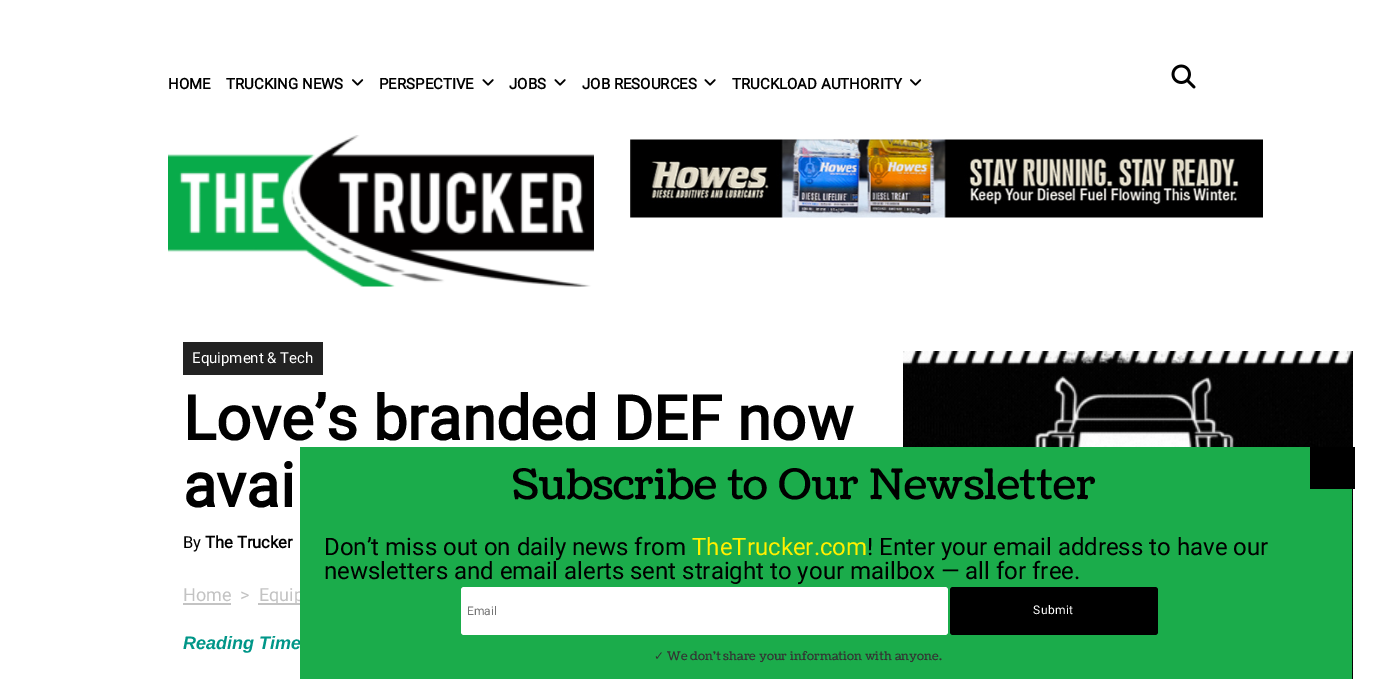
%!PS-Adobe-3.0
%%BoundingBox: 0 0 1400 679
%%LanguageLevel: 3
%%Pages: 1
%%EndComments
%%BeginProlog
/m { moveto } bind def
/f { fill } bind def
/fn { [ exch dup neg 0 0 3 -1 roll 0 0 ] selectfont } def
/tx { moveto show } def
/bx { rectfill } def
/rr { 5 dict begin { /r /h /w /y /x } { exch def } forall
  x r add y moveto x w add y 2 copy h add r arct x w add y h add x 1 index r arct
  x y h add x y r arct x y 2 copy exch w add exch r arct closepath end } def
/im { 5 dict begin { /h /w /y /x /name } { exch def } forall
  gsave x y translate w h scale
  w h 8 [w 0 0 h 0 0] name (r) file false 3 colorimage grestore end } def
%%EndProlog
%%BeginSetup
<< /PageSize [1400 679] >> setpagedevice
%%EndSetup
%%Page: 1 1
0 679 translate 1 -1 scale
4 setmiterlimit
1 setgray
0 0 1400 679 bx
/Roboto-Bold 15 fn
0 setgray
(HOME) 168 89 tx
(TRUCKING NEWS) 226 89 tx
(image0.raw) 352 79 12 7 im
(PERSPECTIVE) 379 89 tx
(image1.raw) 482 79 12 7 im
(JOBS) 509 89 tx
(image1.raw) 554 79 12 7 im
(JOB RESOURCES) 582 89 tx
(image1.raw) 704 79 12 7 im
(TRUCKLOAD AUTHORITY) 732 89 tx
(image0.raw) 910 79 12 7 im
(image2.raw) 1171 64 25 25 im
(image3.raw) 168 135 426 152 im
(image4.raw) 630 139 633 79 im
0.133 setgray
183 342 140 33 bx
/Roboto-Regular 15 fn
1 setgray
(Equipment & Tech) 192 363 tx
/Roboto-Bold 61.5 fn
0 setgray
(Love’s branded DEF now) 183 440 tx
(avai) 183 507 tx
/Roboto-Regular 16.5 fn
(By) 183 548 tx
/Roboto-Bold 16.5 fn
(The Trucker) 205 548 tx
/Roboto-Regular 18 fn
0.765 setgray
(Home) 183 601 tx
183 603 48 2 bx
(>) 240 601 tx
258 603 42 2 bx
(Equip) 259 601 tx
/LiberationSans-BoldItalic 18 fn
0 0.588 0.533 setrgbcolor
(Reading Time) 183 649 tx
(image5.raw) 903 351 450 328 im
0.106 0.675 0.294 setrgbcolor
300 447 1052 232 bx
/Coustard-Regular 42 fn
0 setgray
(Subscribe to Our Newsletter) 512 499 tx
1310 447 45 42 bx
/Roboto-Regular 24 fn
(Don’t miss out on daily news from) 324 555 tx
1 0.941 0 setrgbcolor
(TheTrucker.com) 692 555 tx
0 setgray
(! Enter your email address to have our) 867 555 tx
(newsletters and email alerts sent straight to your mailbox — all for free.) 324 579 tx
1 setgray
461 587 487 48 3 rr f
/Roboto-Regular 12 fn
0.459 setgray
(Email) 467 615 tx
0 setgray
950 587 208 48 3 rr f
1 setgray
1033 614 m 0.5 0 (Submit) ashow
/DejaVuSans-Regular 12 fn
0.2 setgray
(✓) 654 660 tx
/Coustard-Regular 12 fn
(We don't share your information with anyone.) 667 660 tx
showpage
%%EOF
